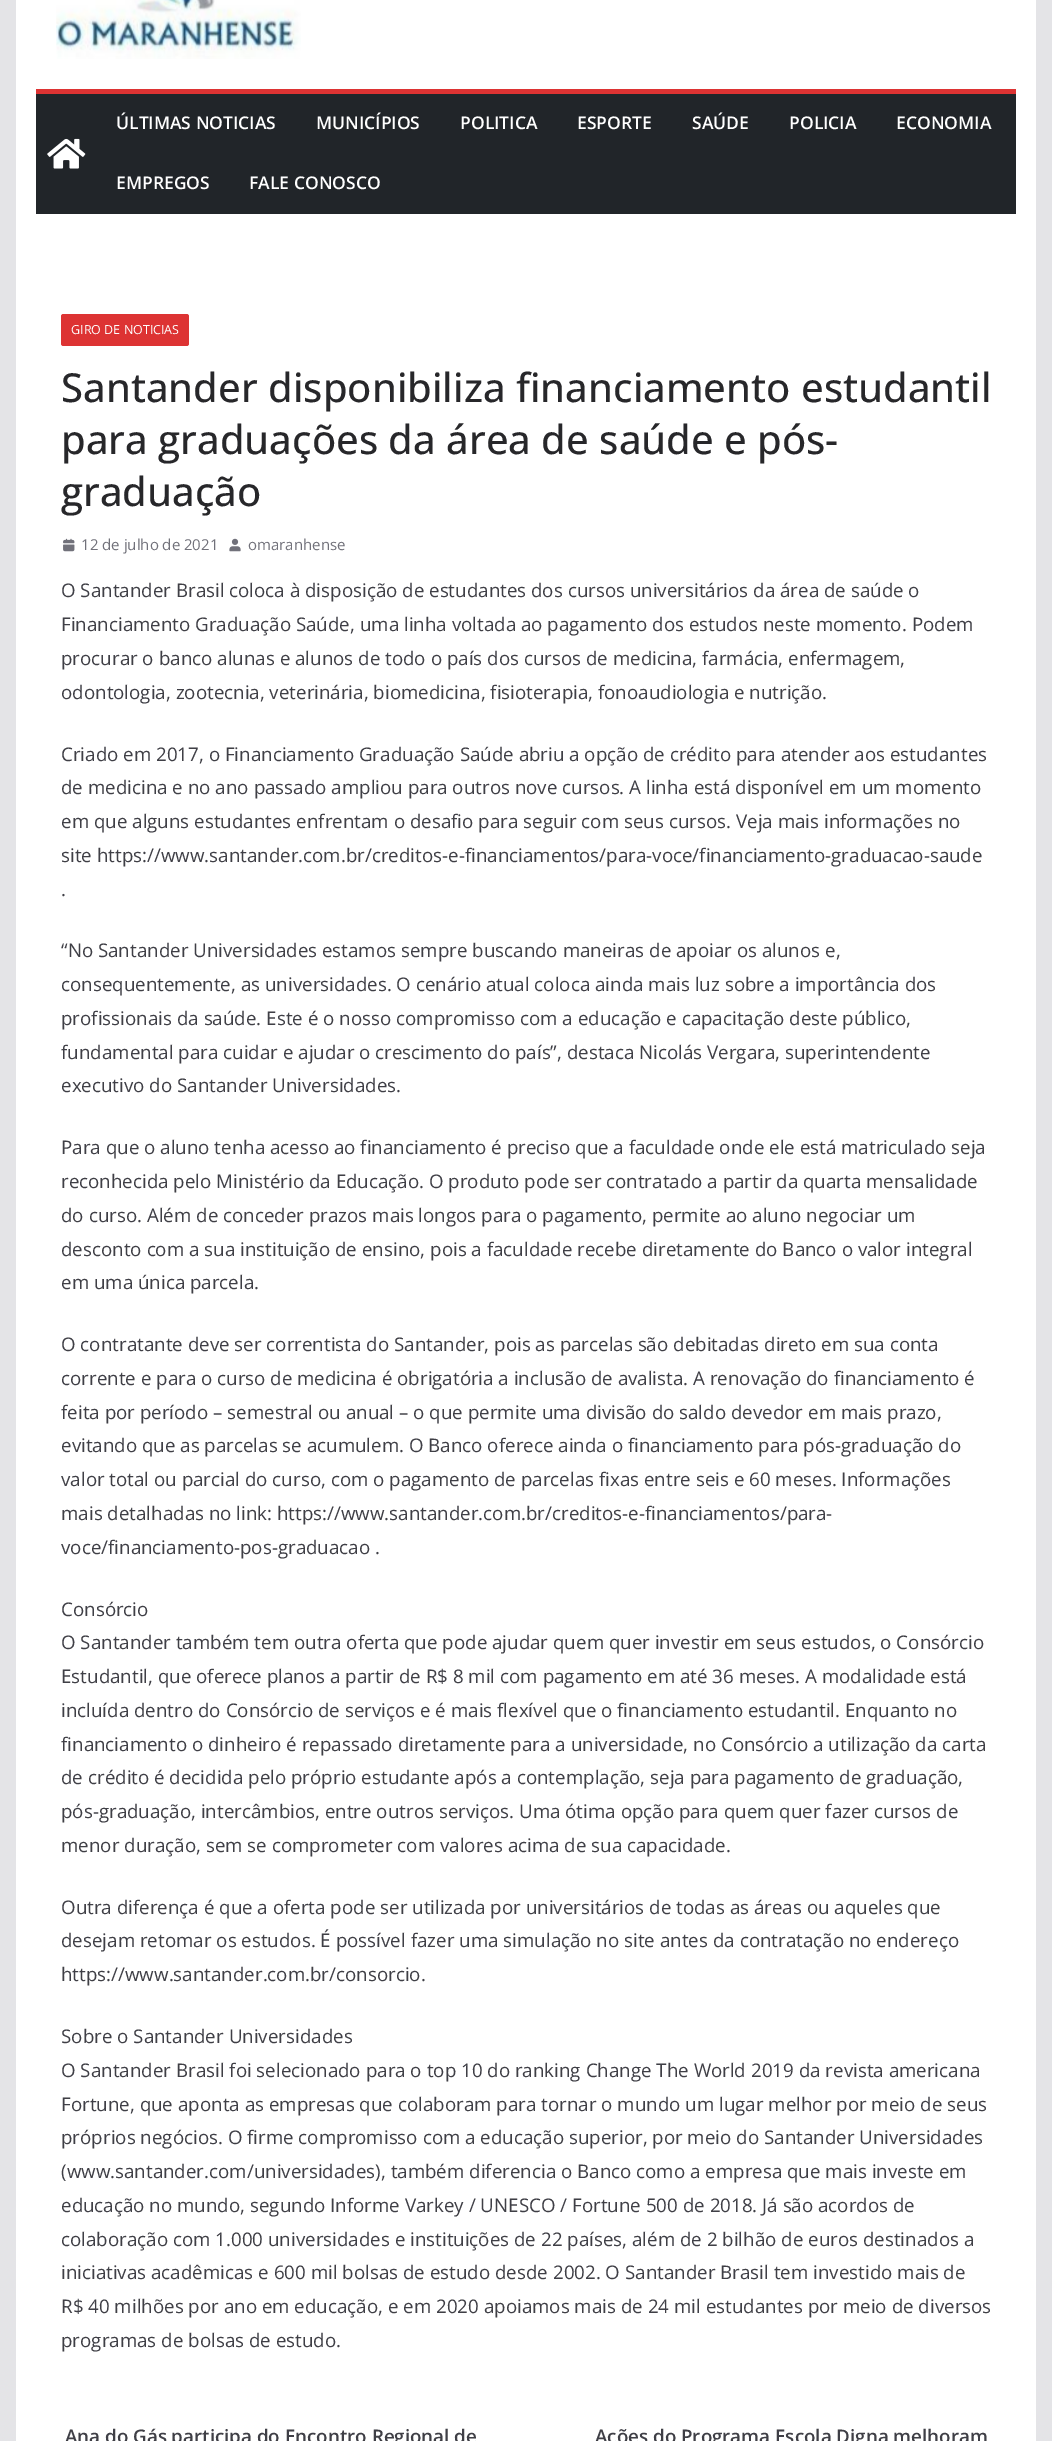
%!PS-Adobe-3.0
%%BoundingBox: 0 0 1052 2441
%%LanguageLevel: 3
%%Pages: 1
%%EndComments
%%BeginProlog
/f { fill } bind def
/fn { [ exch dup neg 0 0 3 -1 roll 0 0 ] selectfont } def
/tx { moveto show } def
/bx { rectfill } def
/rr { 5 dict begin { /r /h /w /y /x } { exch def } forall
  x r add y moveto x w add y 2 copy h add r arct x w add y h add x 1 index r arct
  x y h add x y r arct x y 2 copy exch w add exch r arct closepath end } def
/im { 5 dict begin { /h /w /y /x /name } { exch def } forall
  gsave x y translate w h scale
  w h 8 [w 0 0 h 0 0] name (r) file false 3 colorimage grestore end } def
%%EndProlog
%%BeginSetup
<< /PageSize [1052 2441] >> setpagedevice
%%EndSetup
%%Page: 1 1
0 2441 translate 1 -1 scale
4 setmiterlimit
0.894 0.894 0.906 setrgbcolor
0 0 1052 2441 bx
1 setgray
16 0 1020 2441 bx
(image0.raw) 56 0 245 59 im
0.129 0.145 0.161 setrgbcolor
36 94 980 120 bx
0.867 0.2 0.2 setrgbcolor
36 89 980 5 bx
(image1.raw) 47 138 39 31 im
/OpenSans-SemiBold 17.5 fn
1 setgray
(ÚLTIMAS NOTICIAS) 116 129 tx
(MUNICÍPIOS) 316 129 tx
(POLITICA) 460 129 tx
(ESPORTE) 577 129 tx
(SAÚDE) 692 129 tx
(POLICIA) 789 129 tx
(ECONOMIA) 896 129 tx
(EMPREGOS) 116 189 tx
(FALE CONOSCO) 249 189 tx
0.867 0.2 0.2 setrgbcolor
61 314 128 32 2.5 rr f
/OpenSans-Regular 12.5 fn
1 setgray
(GIRO DE NOTICIAS) 71 334 tx
/OpenSans-Medium 40 fn
0.153 0.153 0.165 setrgbcolor
(Santander disponibiliza financiamento estudantil) 61 402 tx
(para graduações da área de saúde e pós-) 61 454 tx
(graduação) 61 506 tx
(image2.raw) 63 538 12 14 im
/OpenSans-Regular 15 fn
0.443 0.443 0.478 setrgbcolor
(12 de julho de 2021) 81 550 tx
(image3.raw) 229 538 12 14 im
(omaranhense) 248 550 tx
/OpenSans-Regular 18.75 fn
0.247 0.247 0.275 setrgbcolor
(O Santander Brasil coloca à disposição de estudantes dos cursos universitários da área de saúde o) 61 597 tx
(Financiamento Graduação Saúde, uma linha voltada ao pagamento dos estudos neste momento. Podem) 61 631 tx
(procurar o banco alunas e alunos de todo o país dos cursos de medicina, farmácia, enfermagem,) 61 665 tx
(odontologia, zootecnia, veterinária, biomedicina, fisioterapia, fonoaudiologia e nutrição.) 61 699 tx
(Criado em 2017, o Financiamento Graduação Saúde abriu a opção de crédito para atender aos estudantes) 61 761 tx
(de medicina e no ano passado ampliou para outros nove cursos. A linha está disponível em um momento) 61 794 tx
(em que alguns estudantes enfrentam o desafio para seguir com seus cursos. Veja mais informações no) 61 828 tx
(site https://www.santander.com.br/creditos-e-financiamentos/para-voce/financiamento-graduacao-saude) 61 862 tx
(.) 61 896 tx
(“No Santander Universidades estamos sempre buscando maneiras de apoiar os alunos e,) 61 957 tx
(consequentemente, as universidades. O cenário atual coloca ainda mais luz sobre a importância dos) 61 991 tx
(profissionais da saúde. Este é o nosso compromisso com a educação e capacitação deste público,) 61 1025 tx
(fundamental para cuidar e ajudar o crescimento do país”, destaca Nicolás Vergara, superintendente) 61 1059 tx
(executivo do Santander Universidades.) 61 1092 tx
(Para que o aluno tenha acesso ao financiamento é preciso que a faculdade onde ele está matriculado seja) 61 1154 tx
(reconhecida pelo Ministério da Educação. O produto pode ser contratado a partir da quarta mensalidade) 61 1188 tx
(do curso. Além de conceder prazos mais longos para o pagamento, permite ao aluno negociar um) 61 1222 tx
(desconto com a sua instituição de ensino, pois a faculdade recebe diretamente do Banco o valor integral) 61 1256 tx
(em uma única parcela.) 61 1289 tx
(O contratante deve ser correntista do Santander, pois as parcelas são debitadas direto em sua conta) 61 1351 tx
(corrente e para o curso de medicina é obrigatória a inclusão de avalista. A renovação do financiamento é) 61 1385 tx
(feita por período – semestral ou anual – o que permite uma divisão do saldo devedor em mais prazo,) 61 1419 tx
(evitando que as parcelas se acumulem. O Banco oferece ainda o financiamento para pós-graduação do) 61 1452 tx
(valor total ou parcial do curso, com o pagamento de parcelas fixas entre seis e 60 meses. Informações) 61 1486 tx
(mais detalhadas no link: https://www.santander.com.br/creditos-e-financiamentos/para-) 61 1520 tx
(voce/financiamento-pos-graduacao .) 61 1554 tx
(Consórcio) 61 1616 tx
(O Santander também tem outra oferta que pode ajudar quem quer investir em seus estudos, o Consórcio) 61 1649 tx
(Estudantil, que oferece planos a partir de R$ 8 mil com pagamento em até 36 meses. A modalidade está) 61 1683 tx
(incluída dentro do Consórcio de serviços e é mais flexível que o financiamento estudantil. Enquanto no) 61 1717 tx
(financiamento o dinheiro é repassado diretamente para a universidade, no Consórcio a utilização da carta) 61 1751 tx
(de crédito é decidida pelo próprio estudante após a contemplação, seja para pagamento de graduação,) 61 1784 tx
(pós-graduação, intercâmbios, entre outros serviços. Uma ótima opção para quem quer fazer cursos de) 61 1818 tx
(menor duração, sem se comprometer com valores acima de sua capacidade.) 61 1852 tx
(Outra diferença é que a oferta pode ser utilizada por universitários de todas as áreas ou aqueles que) 61 1914 tx
(desejam retomar os estudos. É possível fazer uma simulação no site antes da contratação no endereço) 61 1947 tx
(https://www.santander.com.br/consorcio.) 61 1981 tx
(Sobre o Santander Universidades) 61 2043 tx
(O Santander Brasil foi selecionado para o top 10 do ranking Change The World 2019 da revista americana) 61 2077 tx
(Fortune, que aponta as empresas que colaboram para tornar o mundo um lugar melhor por meio de seus) 61 2111 tx
(próprios negócios. O firme compromisso com a educação superior, por meio do Santander Universidades) 61 2144 tx
(\(www.santander.com/universidades\), também diferencia o Banco como a empresa que mais investe em) 61 2178 tx
(educação no mundo, segundo Informe Varkey / UNESCO / Fortune 500 de 2018. Já são acordos de) 61 2212 tx
(colaboração com 1.000 universidades e instituições de 22 países, além de 2 bilhão de euros destinados a) 61 2246 tx
(iniciativas acadêmicas e 600 mil bolsas de estudo desde 2002. O Santander Brasil tem investido mais de) 61 2279 tx
(R$ 40 milhões por ano em educação, e em 2020 apoiamos mais de 24 mil estudantes por meio de diversos) 61 2313 tx
(programas de bolsas de estudo.) 61 2347 tx
/OpenSans-SemiBold 18.75 fn
(Ana do Gás participa do Encontro Regional de) 65 2443 tx
(Ações do Programa Escola Digna melhoram) 595 2443 tx
showpage
%%EOF
